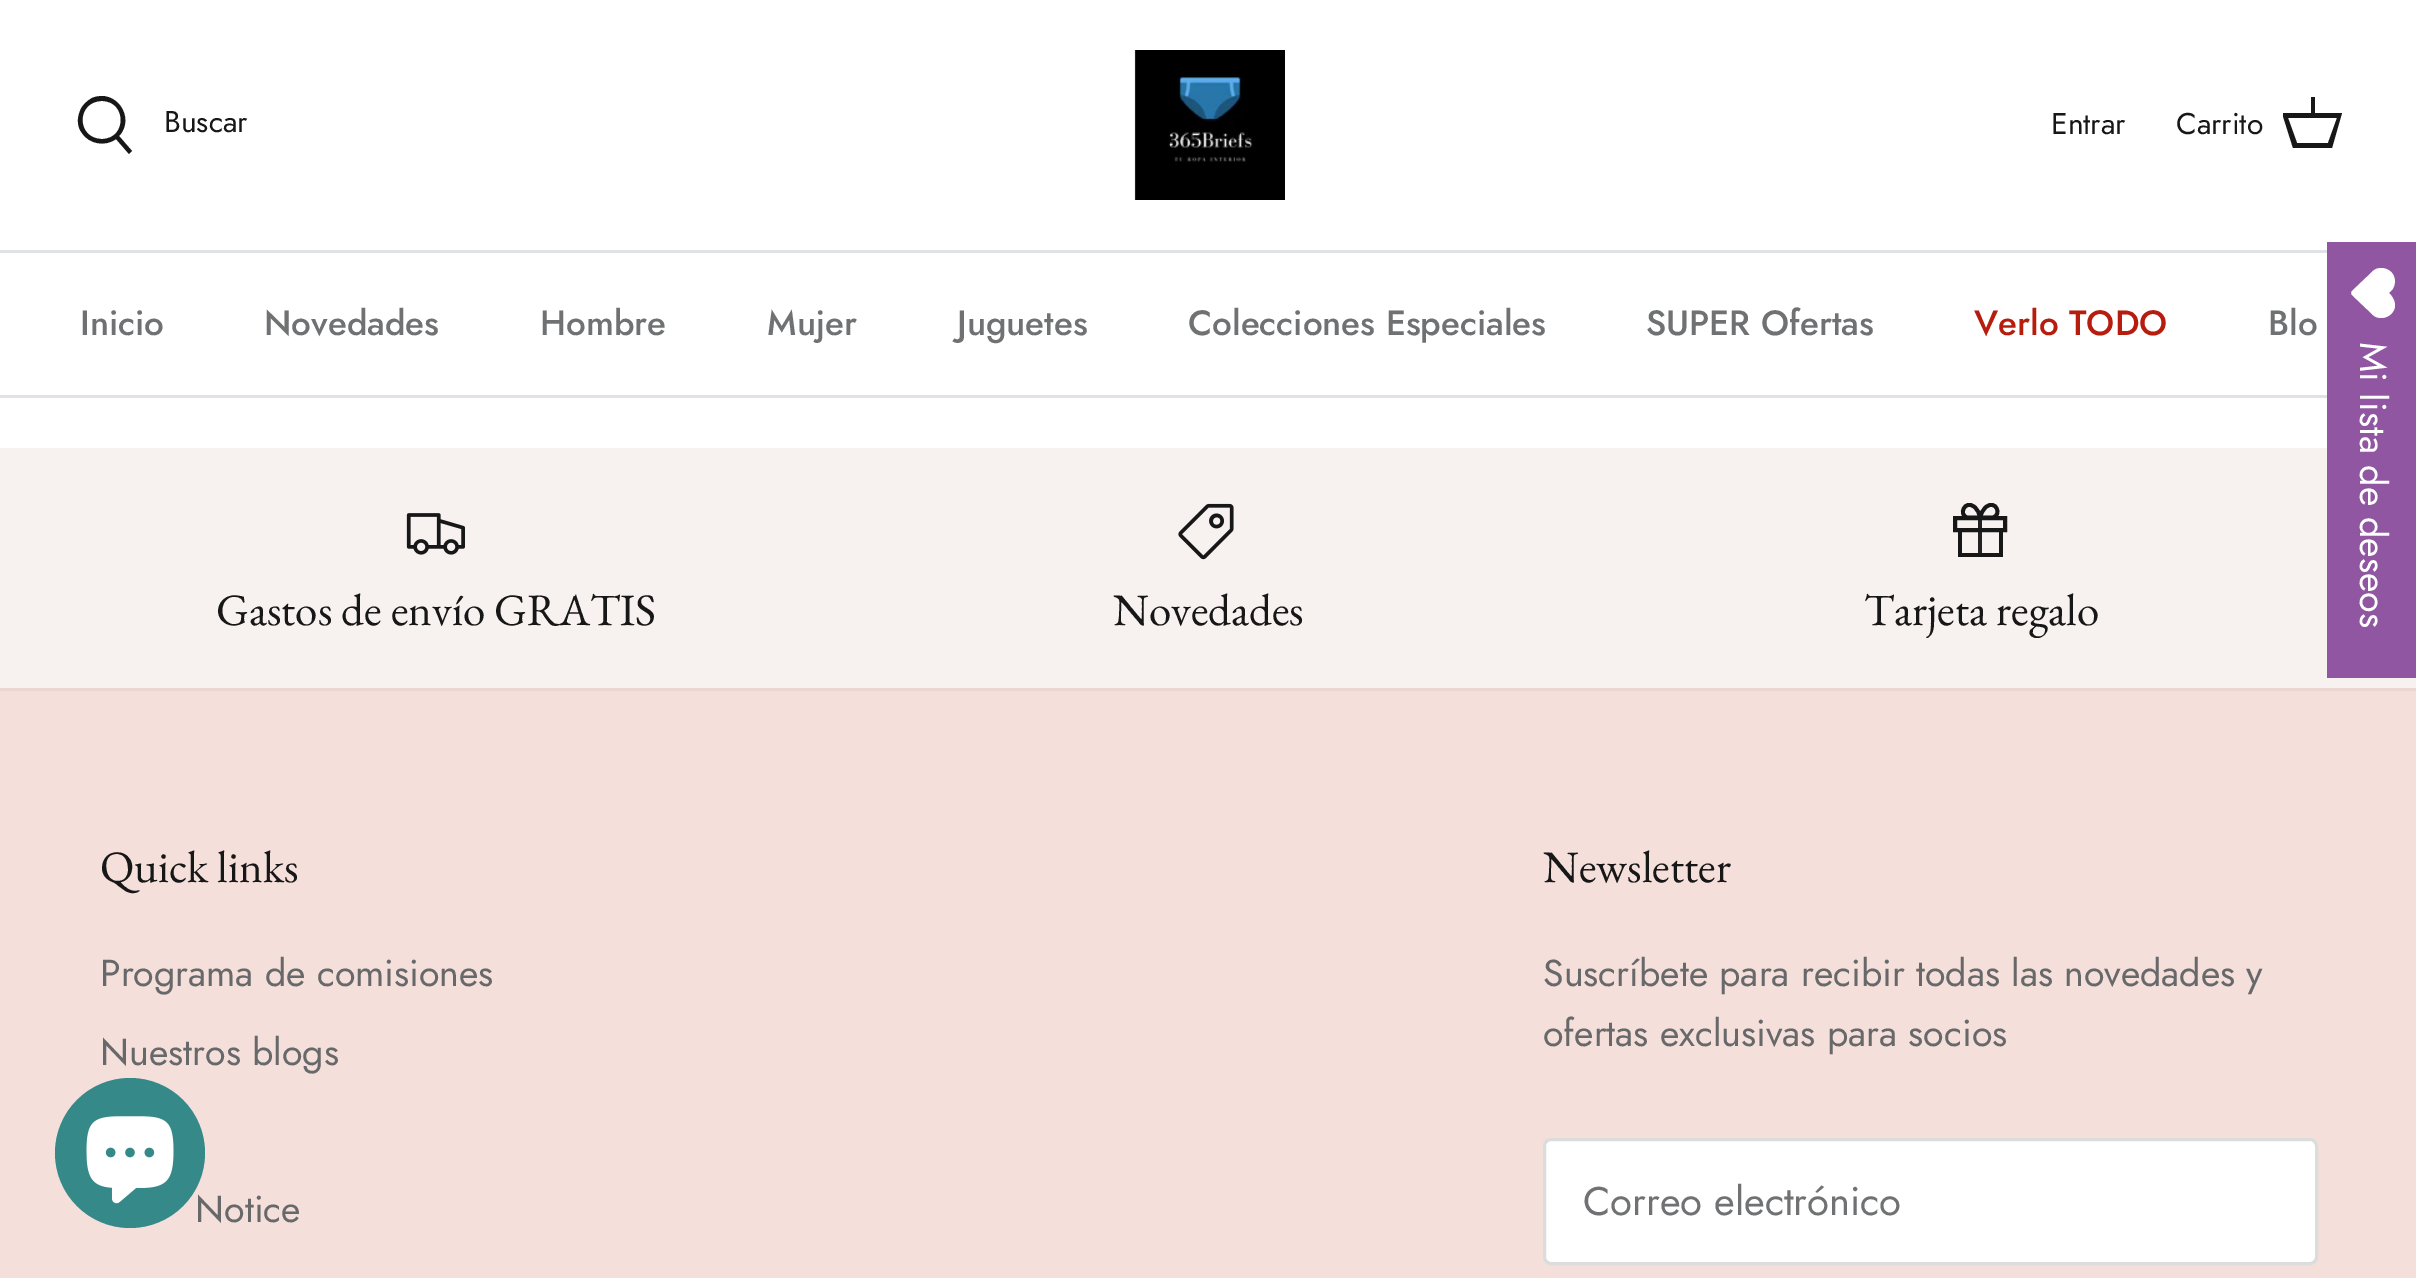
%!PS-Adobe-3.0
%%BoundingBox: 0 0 2416 1278
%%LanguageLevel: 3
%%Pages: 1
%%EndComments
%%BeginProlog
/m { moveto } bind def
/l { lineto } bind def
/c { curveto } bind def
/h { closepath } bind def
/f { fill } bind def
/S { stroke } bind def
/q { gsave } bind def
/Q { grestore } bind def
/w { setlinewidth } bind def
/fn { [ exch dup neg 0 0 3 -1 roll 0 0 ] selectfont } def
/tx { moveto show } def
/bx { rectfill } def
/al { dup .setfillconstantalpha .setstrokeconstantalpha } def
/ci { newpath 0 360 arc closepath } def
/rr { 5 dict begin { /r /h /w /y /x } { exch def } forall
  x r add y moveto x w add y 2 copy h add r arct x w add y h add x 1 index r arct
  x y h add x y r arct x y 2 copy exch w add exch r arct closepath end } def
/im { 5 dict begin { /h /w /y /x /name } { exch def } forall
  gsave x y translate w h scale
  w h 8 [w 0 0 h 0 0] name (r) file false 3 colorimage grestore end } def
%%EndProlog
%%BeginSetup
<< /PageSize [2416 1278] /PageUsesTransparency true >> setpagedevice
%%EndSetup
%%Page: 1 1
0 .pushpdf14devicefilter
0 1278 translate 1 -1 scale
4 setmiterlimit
1 setgray
0 0 2416 1278 bx
0.875 0.89 0.91 setrgbcolor
0 250 2327 3 bx
0.09 setgray
119 136 m 132 151 l 129 154 l 116 139 l 105 147 89 144 82 133 c 77 127 77 118 80 111 c 82 105 87 101 92 98 c 116 88 136 118 119 136 c h 102 139 m 127 139 127 101 102 101 c 76 101 76 139 102 139 c h f
/Jost-Regular 30 fn
(Buscar) 164 132 tx
(image0.raw) 1134 50 151 150 im
(Entrar) 2051 134 tx
(Carrito) 2176 134 tx
q
2283 93 60 60 rectclip
2311 113 m 2311 97 l 2315 97 l 2315 113 l 2342 113 l 2332 148 l 2293 148 l 2282 113 l h 2288 118 m 2297 143 l 2328 143 l 2337 118 l h f
Q
0.875 0.89 0.91 setrgbcolor
0 395 2327 3 bx
/Jost-Medium 35 fn
0.439 0.443 0.451 setrgbcolor
(Inicio) 80 335 tx
(Novedades) 264 335 tx
(Hombre) 540 335 tx
(Mujer) 767 335 tx
(Juguetes) 957 335 tx
(Colecciones Especiales) 1188 335 tx
(SUPER Ofertas) 1646 335 tx
0.714 0.114 0.059 setrgbcolor
(Verlo TODO) 1974 335 tx
0.439 0.443 0.451 setrgbcolor
(Blo) 2268 335 tx
0.969 0.945 0.941 setrgbcolor
0 448 2416 240 bx
0.565 0.337 0.635 setrgbcolor
2327 242 89 436 bx
1 setgray
2392 313 m 2398 306 2394 298 2389 293 c 2391 291 l 2396 286 2396 278 2392 273 c 2387 267 2377 266 2372 272 c 2352 291 l 2351 292 2351 294 2352 295 c 2372 314 l 2377 320 2387 319 2392 313 c h f
/Jost-Regular 37.5 fn
q 2360 342 translate 90 rotate 0 0 m (Mi lista de deseos) show Q
0.957 0.875 0.859 setrgbcolor
0 691 2416 587 bx
(image1.raw) 406 513 59 42 im
/EBGaramond-Regular 45 fn
0.09 setgray
(Gastos de envío GRATIS) 216 625 tx
(image2.raw) 1178 503 56 57 im
(Novedades) 1113 625 tx
3.8 w
2001 530 m 2001 555 l 1960 555 l 1960 530 l S
4 w
1955 518 50 12 rectstroke
0.95 al
1978 518 4 37 bx
1 al
3.8 w
1980 517.5 m 1967.5 517.5 l 1958 515.5 1964.5 499 1974.5 507 c 1977.5 509.5 1979.5 513.5 1980 517.5 c h 1980 517.5 m 1992.5 517.5 l 2002.5 515.5 1996 499 1986 507 c 1983 509.5 1981 513.5 1980 517.5 c h S
(Tarjeta regalo) 1864 625 tx
0.925 0.839 0.82 setrgbcolor
0 688 2416 3 bx
0.09 setgray
(Quick links) 100 882 tx
/Jost-Regular 37.5 fn
0.404 0.408 0.412 setrgbcolor
(Programa de comisiones) 100 986 tx
(Nuestros blogs) 100 1065 tx
(Notice) 195 1222 tx
/EBGaramond-Regular 45 fn
0.09 setgray
(Newsletter) 1543 882 tx
/Jost-Regular 37.5 fn
0.404 0.408 0.412 setrgbcolor
(Suscríbete para recibir todas las novedades y) 1543 986 tx
(ofertas exclusivas para socios) 1543 1046 tx
1 setgray
1544.5 1139.5 772 124 6.5 rr q f Q
0.859 0.863 0.863 setrgbcolor
3 w
S
/Jost-Regular 40 fn
0.439 0.443 0.451 setrgbcolor
(Correo electrónico) 1583 1215 tx
0.208 0.537 0.537 setrgbcolor
130 1153 75 ci f
(image3.raw) 86 1116 88 88 im
.poppdf14devicefilter showpage
%%EOF
